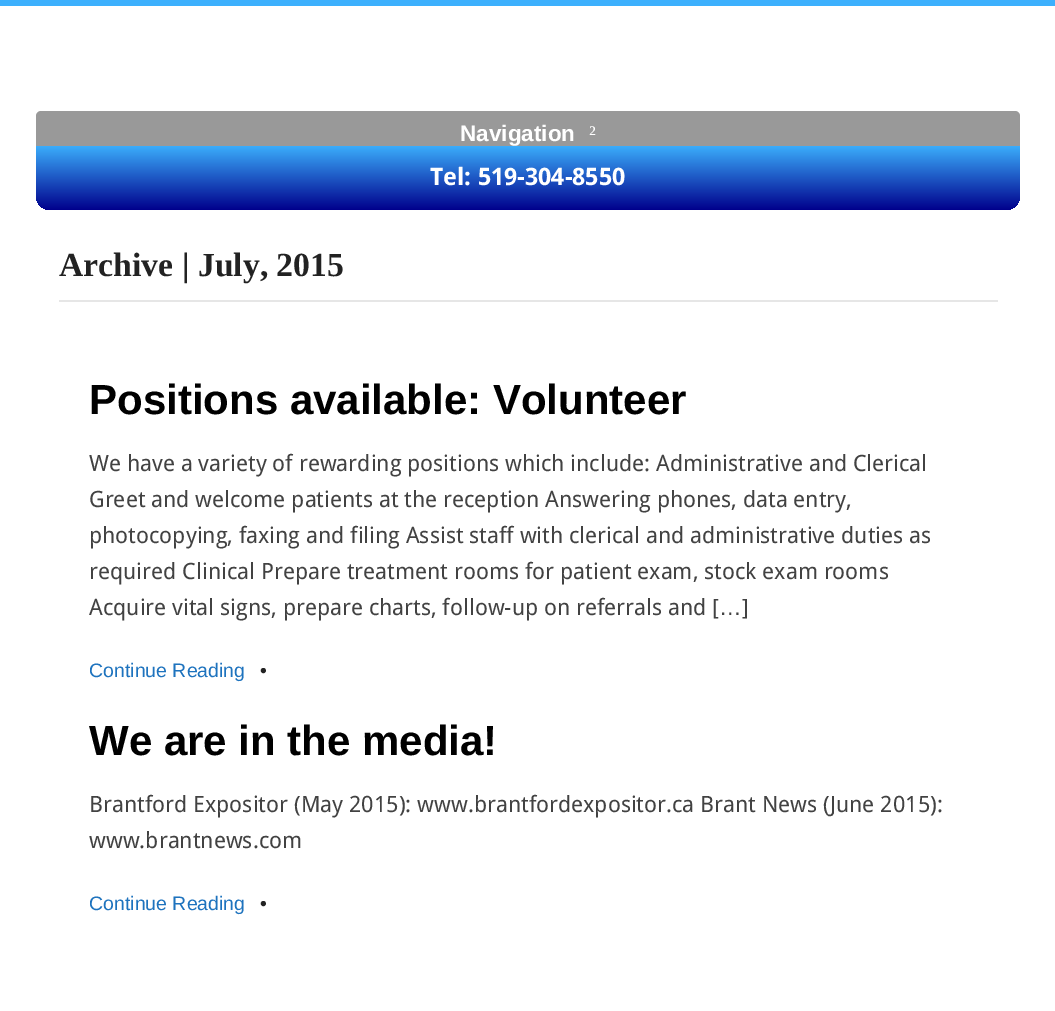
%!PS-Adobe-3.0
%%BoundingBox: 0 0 1055 1011
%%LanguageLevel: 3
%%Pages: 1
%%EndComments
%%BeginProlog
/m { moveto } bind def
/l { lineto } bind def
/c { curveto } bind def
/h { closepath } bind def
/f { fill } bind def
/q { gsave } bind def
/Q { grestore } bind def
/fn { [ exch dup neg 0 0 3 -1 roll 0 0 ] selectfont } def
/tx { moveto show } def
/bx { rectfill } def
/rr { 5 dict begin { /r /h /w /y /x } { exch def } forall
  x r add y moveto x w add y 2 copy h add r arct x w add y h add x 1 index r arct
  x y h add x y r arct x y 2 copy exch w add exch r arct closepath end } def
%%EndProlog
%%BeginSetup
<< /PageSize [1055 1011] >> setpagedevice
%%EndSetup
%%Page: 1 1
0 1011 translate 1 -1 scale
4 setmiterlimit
1 setgray
0 0 1055 1011 bx
0.235 0.69 0.992 setrgbcolor
0 0 1055 6 bx
0.6 setgray
36 111 984 45 5 rr f
/LiberationSans-Bold 22.5 fn
1 setgray
(Navigation) 460 141 tx
/LiberationSerif-Regular 22.5 fn
(²) 589 141 tx
q 36 146 m 1018.5 146 l 1019.5 146 1020 146.5 1020 147.5 c 1020 195 l 1020 203.5 1013.5 210 1005 210 c 51 210 l 42.5 210 36 203.5 36 195 c h clip newpath
<< /ShadingType 2 /ColorSpace /DeviceRGB /Coords [528 145 528 210] /Extend [true true] /Function << /FunctionType 2 /Domain [0 1] /C0 [0.235 0.69 0.992] /C1 [0 0 0.549] /N 1 >> >> shfill Q
/DroidSans-Bold 24 fn
(Tel: 519-304-8550) 430 185 tx
0.902 setgray
59 300 939 2 bx
/LiberationSerif-Bold 33.75 fn
0.133 setgray
(Archive | July, 2015) 59 276 tx
/LiberationSans-Bold 42 fn
0 setgray
(Positions available: Volunteer) 89 414 tx
/DroidSans-Regular 22.5 fn
0.259 setgray
(We have a variety of rewarding positions which include: Administrative and Clerical) 89 471 tx
(Greet and welcome patients at the reception Answering phones, data entry,) 89 507 tx
(photocopying, faxing and filing Assist staff with clerical and administrative duties as) 89 543 tx
(required Clinical Prepare treatment rooms for patient exam, stock exam rooms) 89 579 tx
(Acquire vital signs, prepare charts, follow-up on referrals and [) 89 615 tx
/LiberationSans-Regular 22.5 fn
(…) 719 615 tx
/DroidSans-Regular 22.5 fn
(]) 742 615 tx
/LiberationSans-Regular 19.5 fn
0.118 0.451 0.745 setrgbcolor
(Continue Reading) 89 677 tx
0.133 setgray
(•) 260 677 tx
/LiberationSans-Bold 42 fn
0 setgray
(We are in the media!) 89 755 tx
/DroidSans-Regular 22.5 fn
0.259 setgray
(Brantford Expositor \(May 2015\): www.brantfordexpositor.ca Brant News \(June 2015\):) 89 812 tx
(www.brantnews.com) 89 848 tx
/LiberationSans-Regular 19.5 fn
0.118 0.451 0.745 setrgbcolor
(Continue Reading) 89 910 tx
0.133 setgray
(•) 260 910 tx
showpage
%%EOF
